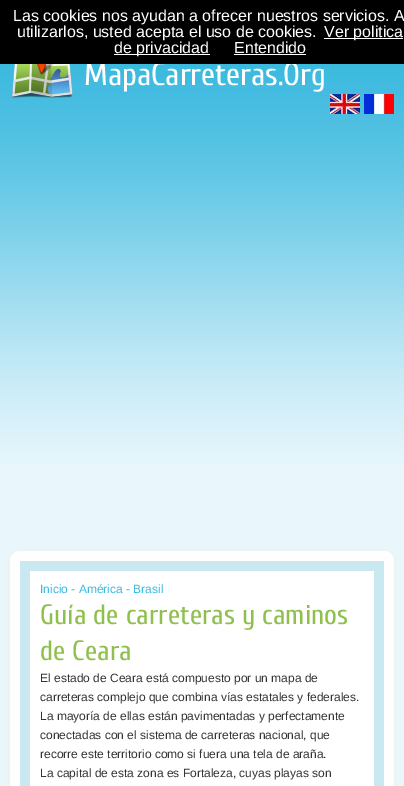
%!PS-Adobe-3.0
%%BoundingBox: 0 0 404 786
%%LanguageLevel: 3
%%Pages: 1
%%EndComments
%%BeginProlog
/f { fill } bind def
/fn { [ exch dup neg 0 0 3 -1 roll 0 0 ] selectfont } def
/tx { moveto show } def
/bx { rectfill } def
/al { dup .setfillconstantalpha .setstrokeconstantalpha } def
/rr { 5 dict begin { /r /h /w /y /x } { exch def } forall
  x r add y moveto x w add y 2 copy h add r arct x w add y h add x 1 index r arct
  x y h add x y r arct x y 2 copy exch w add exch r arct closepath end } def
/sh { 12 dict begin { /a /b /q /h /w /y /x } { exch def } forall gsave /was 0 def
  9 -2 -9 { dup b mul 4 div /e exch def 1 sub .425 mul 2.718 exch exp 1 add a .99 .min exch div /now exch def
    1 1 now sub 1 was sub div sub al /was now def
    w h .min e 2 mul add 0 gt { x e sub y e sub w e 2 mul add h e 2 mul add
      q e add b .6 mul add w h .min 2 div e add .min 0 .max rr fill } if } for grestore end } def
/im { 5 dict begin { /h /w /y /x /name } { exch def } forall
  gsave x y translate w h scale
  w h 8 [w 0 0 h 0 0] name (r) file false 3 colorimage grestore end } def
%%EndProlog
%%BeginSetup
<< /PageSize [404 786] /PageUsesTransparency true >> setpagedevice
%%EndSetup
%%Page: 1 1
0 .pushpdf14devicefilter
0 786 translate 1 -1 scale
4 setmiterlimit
0.914 0.969 0.988 setrgbcolor
0 0 404 786 bx
(image0.raw) 0 64 404 400 im
/Cuprum-Regular 32 fn
1 setgray
(MapaCarreteras.Org) 84 85 tx
0 setgray
0 0 404 64 bx
/LiberationSans-Regular 16 fn
1 setgray
(Las cookies nos ayudan a ofrecer nuestros servicios. A) 13 21 tx
(utilizarlos, usted acepta el uso de cookies.) 17 37 tx
324 38 79 1 bx
(Ver politica) 324 37 tx
114 54 96 1 bx
(de privacidad) 114 53 tx
(Entendido) 234 53 tx
234 54 72 1 bx
(image1.raw) 11 64 62 34 im
(image2.raw) 330 94 30 20 im
(image3.raw) 364 94 30 20 im
0.933 setgray
10 551 384 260 10 5 1 sh
0.996 setgray
10 551 384 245 10 rr f
0.792 0.91 0.941 setrgbcolor
20 561 364 225 bx
1 setgray
30 571 344 215 bx
/LiberationSans-Regular 12 fn
0.231 0.725 0.871 setrgbcolor
(Inicio - América - Brasil) 40 593 tx
/Cuprum-Regular 28 fn
0.561 0.749 0.298 setrgbcolor
(Guía de carreteras y caminos) 40 624 tx
(de Ceara) 40 660 tx
/LiberationSans-Regular 12 fn
0.2 setgray
(El estado de Ceara está compuesto por un mapa de) 40 682 tx
(carreteras complejo que combina vías estatales y federales.) 40 701 tx
(La mayoría de ellas están pavimentadas y perfectamente) 40 720 tx
(conectadas con el sistema de carreteras nacional, que) 40 739 tx
(recorre este territorio como si fuera una tela de araña.) 40 758 tx
(La capital de esta zona es Fortaleza, cuyas playas son) 40 777 tx
.poppdf14devicefilter showpage
%%EOF
